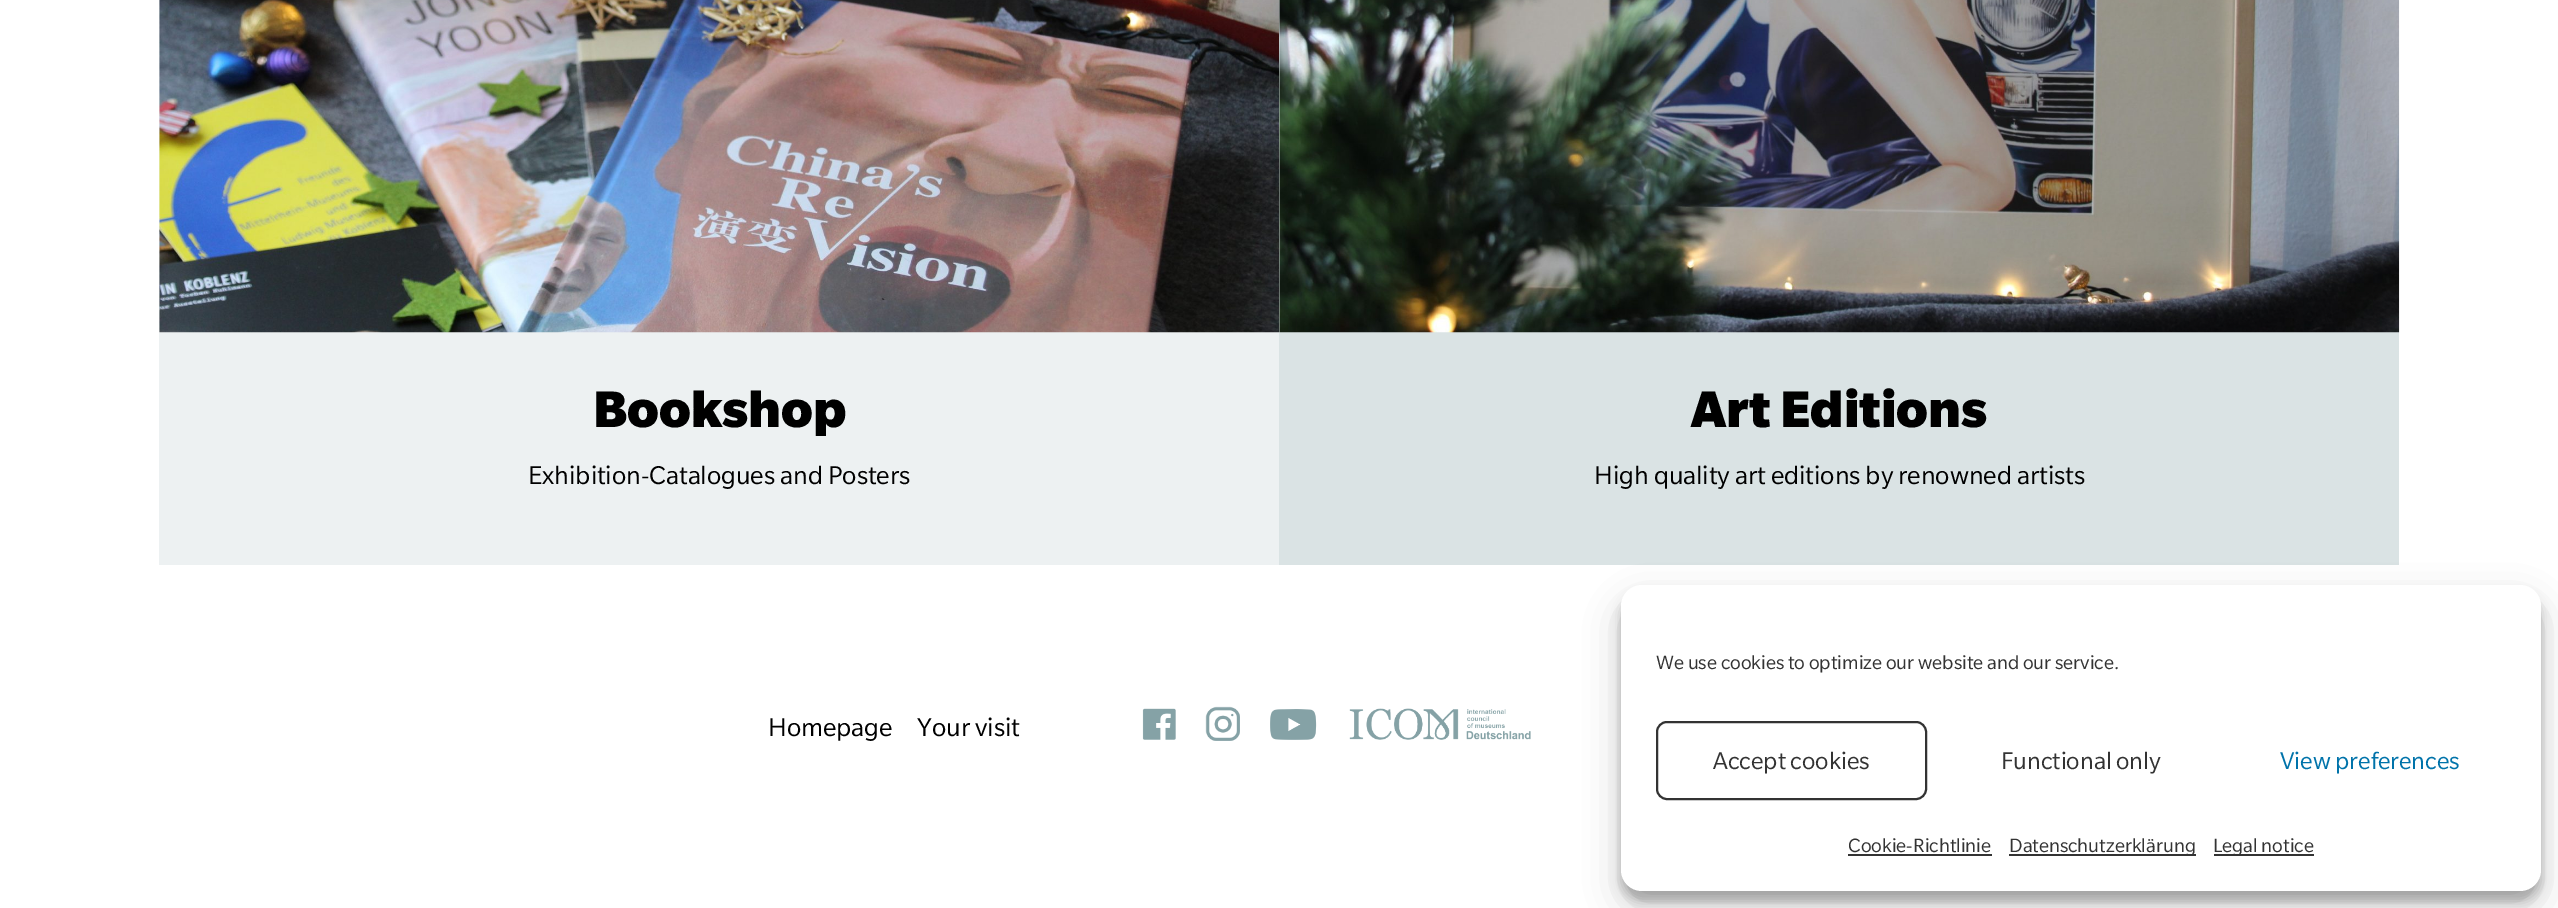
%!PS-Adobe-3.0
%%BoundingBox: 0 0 2558 908
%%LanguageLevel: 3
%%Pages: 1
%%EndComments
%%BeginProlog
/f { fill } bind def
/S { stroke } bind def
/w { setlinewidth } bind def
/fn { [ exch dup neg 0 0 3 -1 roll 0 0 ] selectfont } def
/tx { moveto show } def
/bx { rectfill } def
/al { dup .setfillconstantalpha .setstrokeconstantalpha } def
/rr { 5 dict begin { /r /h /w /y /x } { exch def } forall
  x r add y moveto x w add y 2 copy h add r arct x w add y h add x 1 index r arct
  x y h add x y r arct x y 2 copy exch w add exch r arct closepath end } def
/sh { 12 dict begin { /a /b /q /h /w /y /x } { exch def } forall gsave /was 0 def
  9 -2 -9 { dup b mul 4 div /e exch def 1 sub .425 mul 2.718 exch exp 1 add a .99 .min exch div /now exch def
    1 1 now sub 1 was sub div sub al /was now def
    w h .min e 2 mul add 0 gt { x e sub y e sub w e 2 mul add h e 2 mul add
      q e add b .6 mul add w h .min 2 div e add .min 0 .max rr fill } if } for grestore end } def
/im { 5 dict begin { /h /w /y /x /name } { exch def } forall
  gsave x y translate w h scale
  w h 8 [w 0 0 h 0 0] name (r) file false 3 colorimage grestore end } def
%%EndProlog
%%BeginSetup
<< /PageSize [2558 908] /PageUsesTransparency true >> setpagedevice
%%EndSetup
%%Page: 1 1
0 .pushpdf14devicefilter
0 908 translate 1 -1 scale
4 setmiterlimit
1 setgray
0 0 2558 908 bx
0.929 0.945 0.949 setrgbcolor
159 0 1120 565 bx
(image0.raw) 159 0 1120 333 im
/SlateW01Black-Black 56 fn
0 setgray
(Bookshop) 593 427 tx
/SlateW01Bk-Regular 28 fn
(Exhibition-Catalogues and Posters) 528 484 tx
0.855 0.89 0.894 setrgbcolor
1279 0 1120 565 bx
(image1.raw) 1279 0 1121 333 im
/SlateW01Black-Black 56 fn
0 setgray
(Art Editions) 1691 427 tx
/SlateW01Bk-Regular 28 fn
(High quality art editions by renowned artists) 1594 484 tx
(Homepage) 768 736 tx
(Your visit) 917 736 tx
(image2.raw) 1142 708 34 32 im
(image3.raw) 1205 706 35 35 im
(image4.raw) 1270 709 47 31 im
(image5.raw) 1349 708 182 32 im
1621 595 920 306 21 5 0.23 sh
1621 602 920 306 21 17.5 0.19 sh
1 setgray
1621 585 920 306 21 rr f
/SlateW01Bk-Regular 21 fn
0.2 setgray
(We use cookies to optimize our website and our service.) 1656 669 tx
2 w
1657 722 269 77 10 rr S
/SlateW01Bk-Regular 26.25 fn
(Accept cookies) 1713 769 tx
(Functional only) 2001 769 tx
0 0.451 0.667 setrgbcolor
(View preferences) 2280 769 tx
/SlateW01Bk-Regular 21 fn
0.2 setgray
(Cookie-Richtlinie) 1848 852 tx
1848 854 144 2 bx
2009 854 187 2 bx
(Datenschutzerklärung) 2009 852 tx
2214 854 100 2 bx
(Legal notice) 2213 852 tx
.poppdf14devicefilter showpage
%%EOF
